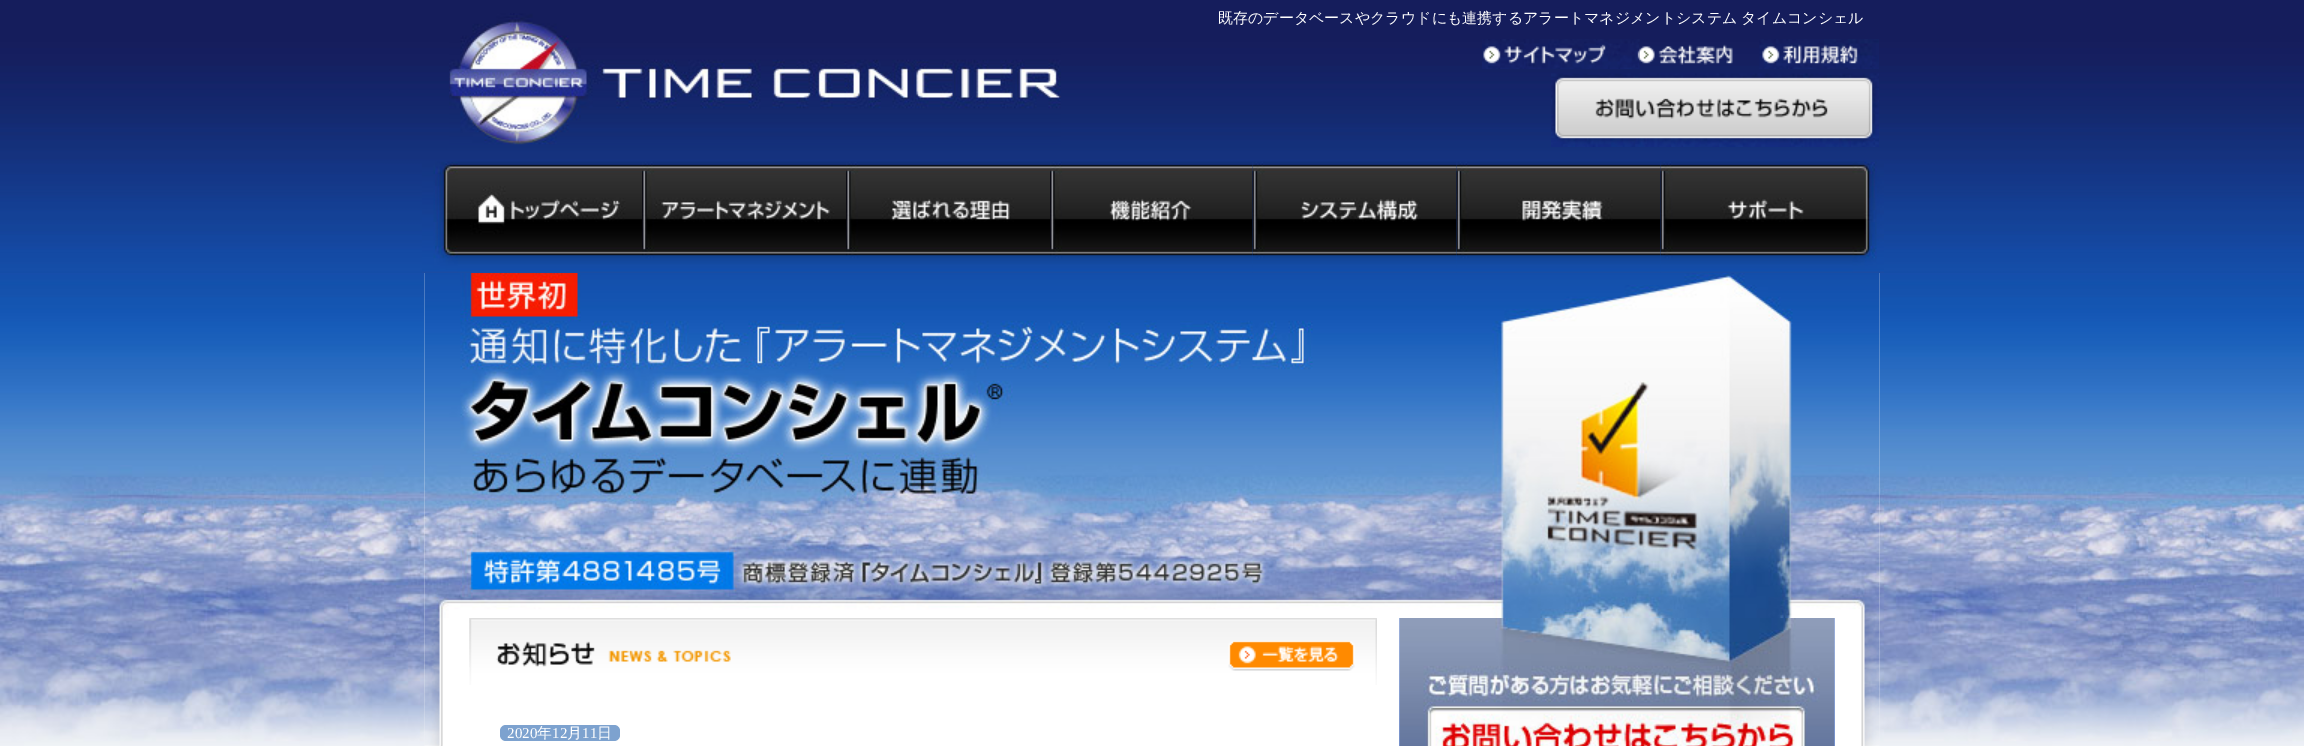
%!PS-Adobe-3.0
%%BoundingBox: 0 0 2304 746
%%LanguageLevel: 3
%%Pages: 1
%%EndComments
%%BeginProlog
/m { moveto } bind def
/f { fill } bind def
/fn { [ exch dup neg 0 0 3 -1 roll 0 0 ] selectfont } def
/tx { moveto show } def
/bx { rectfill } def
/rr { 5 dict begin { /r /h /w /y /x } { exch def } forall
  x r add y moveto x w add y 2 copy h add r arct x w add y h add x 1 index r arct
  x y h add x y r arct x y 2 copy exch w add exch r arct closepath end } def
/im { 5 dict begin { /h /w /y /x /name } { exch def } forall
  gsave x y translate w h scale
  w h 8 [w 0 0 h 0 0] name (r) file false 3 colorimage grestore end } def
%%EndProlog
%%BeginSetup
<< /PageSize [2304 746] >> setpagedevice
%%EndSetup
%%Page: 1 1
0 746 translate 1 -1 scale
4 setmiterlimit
1 setgray
0 0 2304 746 bx
(image0.raw) 0 0 2304 273 im
(image1.raw) 449 13 612 132 im
/WenQuanYiZenHei-Medium 15 fn
1218 23 m -1 0 32 (既存のデータベースやクラウドにも連携するアラートマネジメントシステム タイムコンシェル) widthshow
(image2.raw) 1482 39 158 30 im
(image3.raw) 1639 44 94 21 im
(image4.raw) 1759 39 120 30 im
(image5.raw) 1551 73 328 74 im
(image6.raw) 422 161 220 112 im
(image7.raw) 642 161 204 112 im
(image8.raw) 846 161 204 112 im
(image9.raw) 1050 161 203 112 im
(image10.raw) 1252 161 205 112 im
(image11.raw) 1456 161 205 112 im
(image12.raw) 1660 161 224 112 im
(image14.raw) 0 273 2304 473 im
(image13.raw) 424 273 1456 473 im
(image15.raw) 424 273 1456 345 im
(image16.raw) 424 618 1456 127 im
(image17.raw) 469 618 908 67 im
(image18.raw) 469 618 262 49 im
(image19.raw) 1228 641 127 30 im
0.49 0.635 0.812 setrgbcolor
500 725 120 16 6 rr f
/LiberationSerif-Regular 15 fn
1 setgray
(2020) 507 738 tx
/WenQuanYiZenHei-Medium 15 fn
(年) 537 738 tx
/LiberationSerif-Regular 15 fn
(12) 552 738 tx
/WenQuanYiZenHei-Medium 15 fn
(月) 567 738 tx
/LiberationSerif-Regular 15 fn
(11) 582 738 tx
/WenQuanYiZenHei-Medium 15 fn
(日) 597 738 tx
(image20.raw) 1399 618 436 128 im
(image21.raw) 1399 618 436 128 im
showpage
%%EOF
